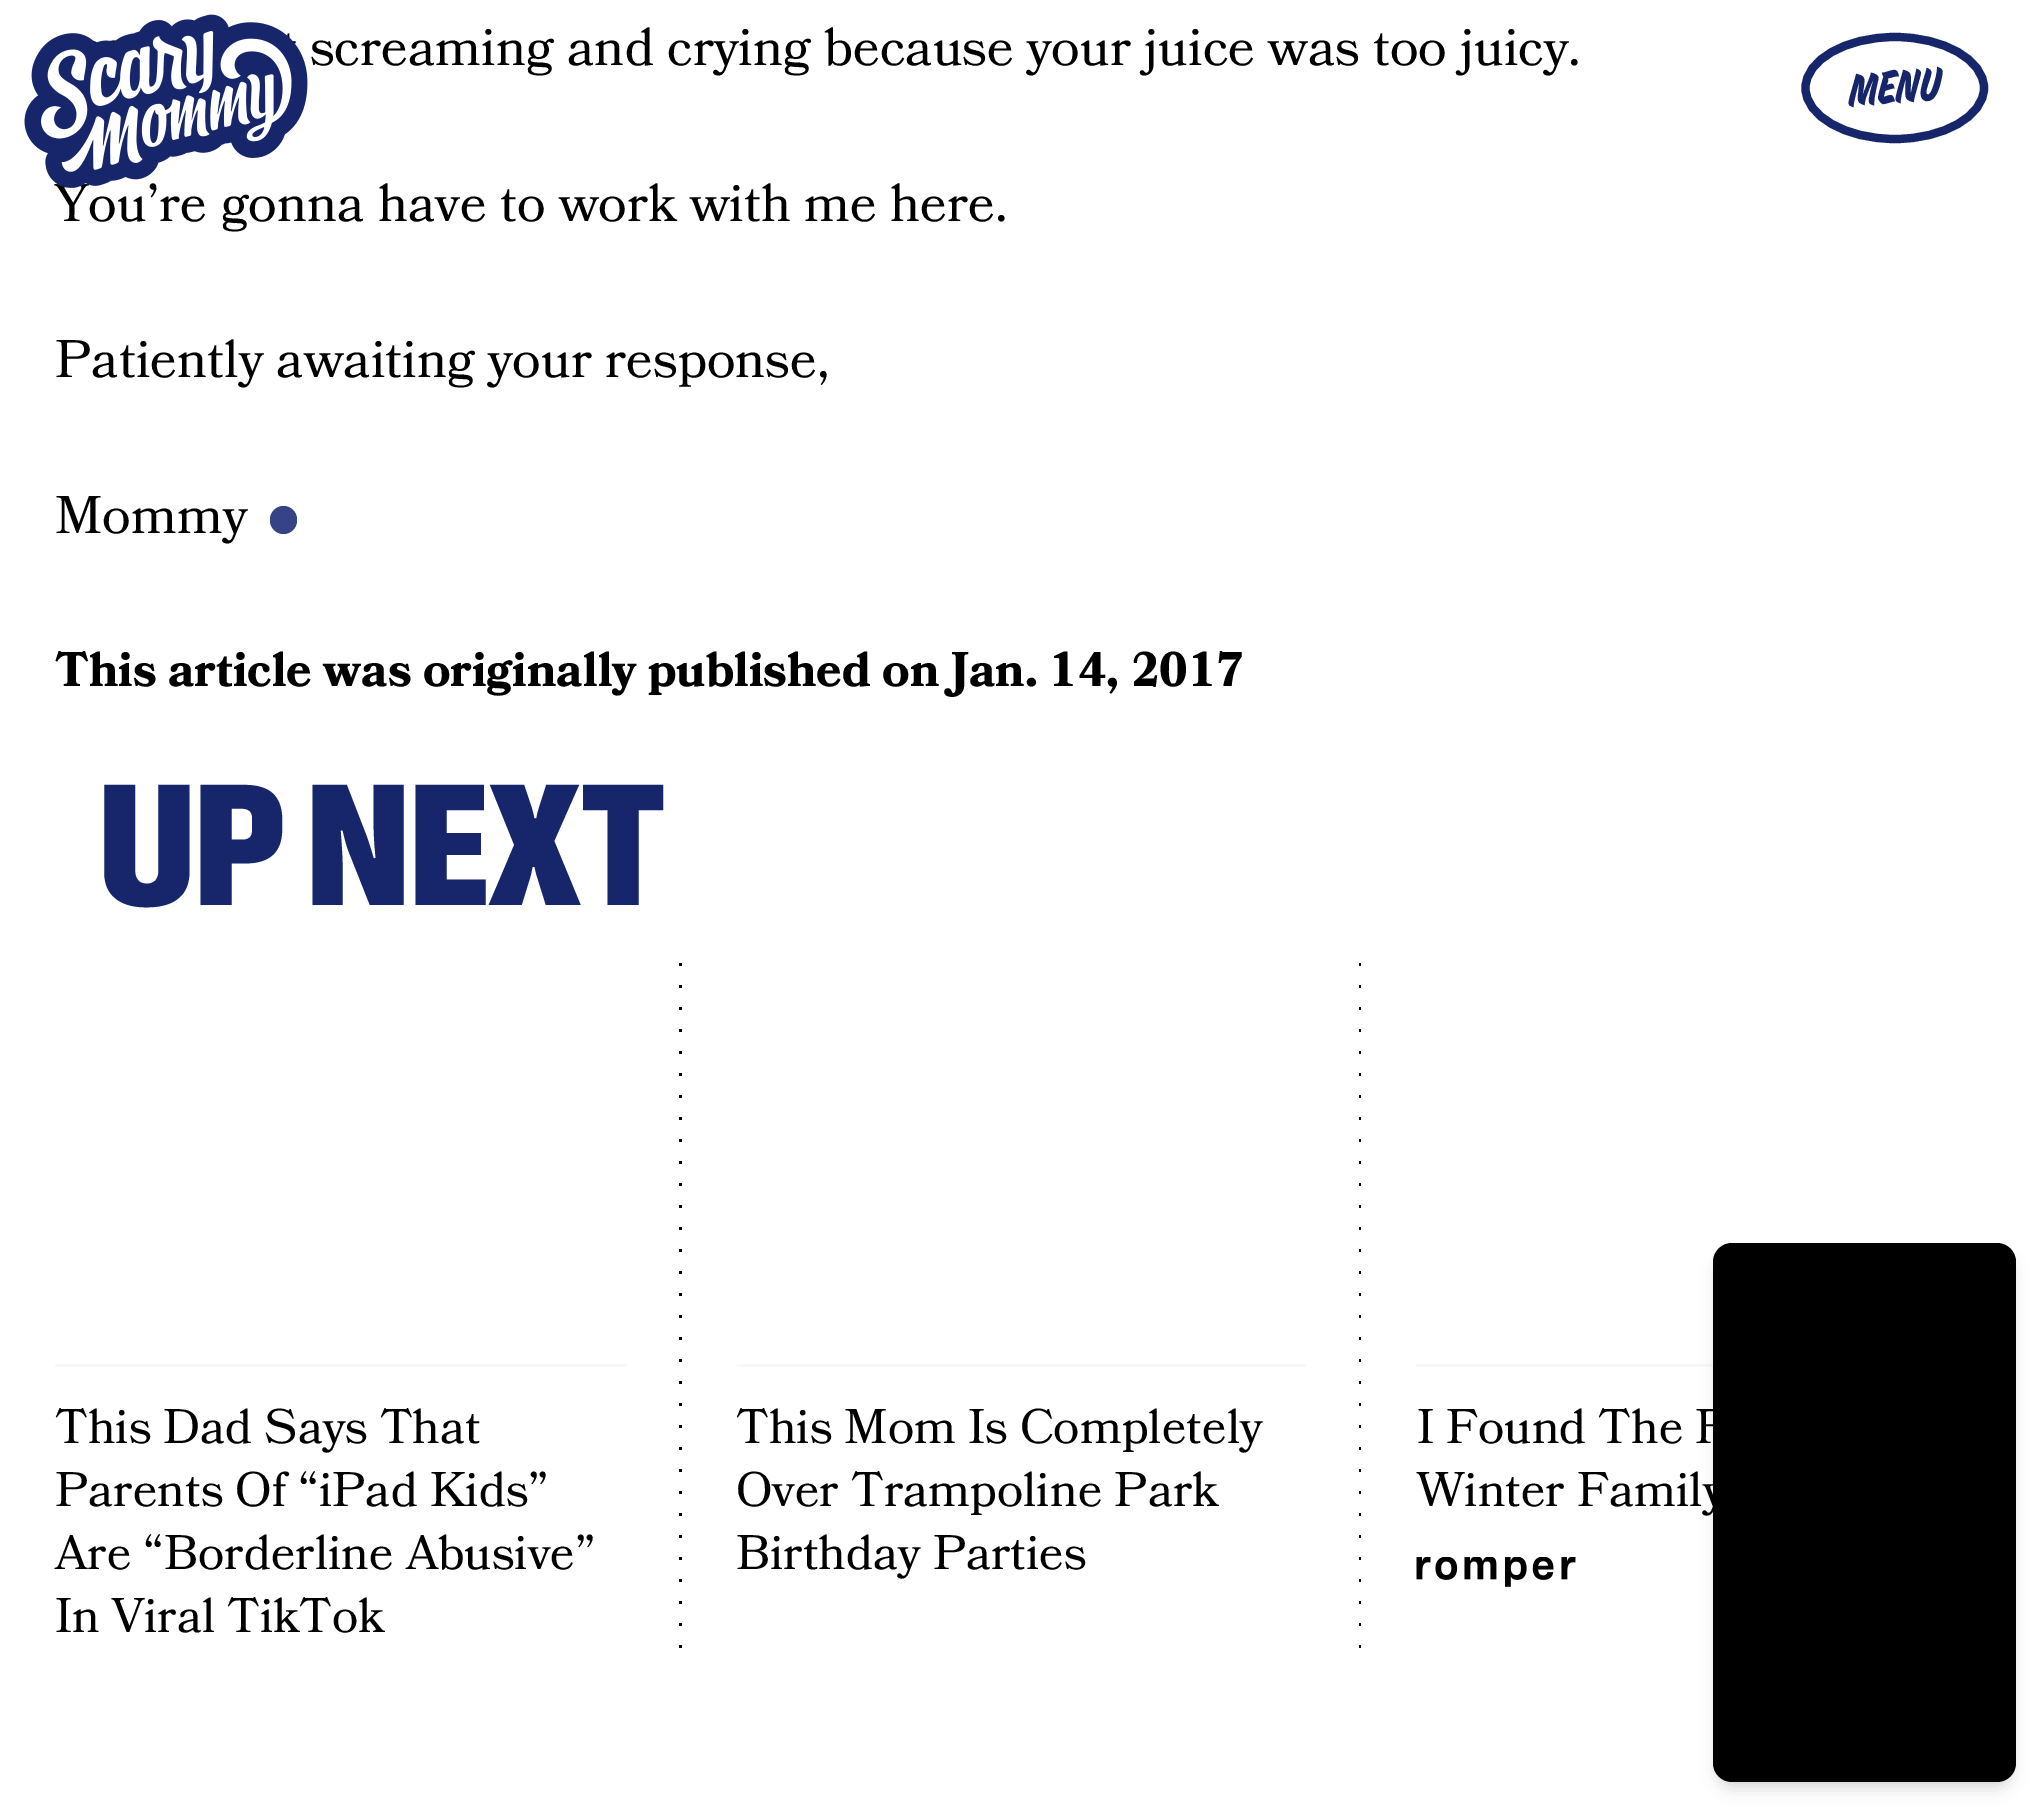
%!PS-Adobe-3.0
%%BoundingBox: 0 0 2042 1807
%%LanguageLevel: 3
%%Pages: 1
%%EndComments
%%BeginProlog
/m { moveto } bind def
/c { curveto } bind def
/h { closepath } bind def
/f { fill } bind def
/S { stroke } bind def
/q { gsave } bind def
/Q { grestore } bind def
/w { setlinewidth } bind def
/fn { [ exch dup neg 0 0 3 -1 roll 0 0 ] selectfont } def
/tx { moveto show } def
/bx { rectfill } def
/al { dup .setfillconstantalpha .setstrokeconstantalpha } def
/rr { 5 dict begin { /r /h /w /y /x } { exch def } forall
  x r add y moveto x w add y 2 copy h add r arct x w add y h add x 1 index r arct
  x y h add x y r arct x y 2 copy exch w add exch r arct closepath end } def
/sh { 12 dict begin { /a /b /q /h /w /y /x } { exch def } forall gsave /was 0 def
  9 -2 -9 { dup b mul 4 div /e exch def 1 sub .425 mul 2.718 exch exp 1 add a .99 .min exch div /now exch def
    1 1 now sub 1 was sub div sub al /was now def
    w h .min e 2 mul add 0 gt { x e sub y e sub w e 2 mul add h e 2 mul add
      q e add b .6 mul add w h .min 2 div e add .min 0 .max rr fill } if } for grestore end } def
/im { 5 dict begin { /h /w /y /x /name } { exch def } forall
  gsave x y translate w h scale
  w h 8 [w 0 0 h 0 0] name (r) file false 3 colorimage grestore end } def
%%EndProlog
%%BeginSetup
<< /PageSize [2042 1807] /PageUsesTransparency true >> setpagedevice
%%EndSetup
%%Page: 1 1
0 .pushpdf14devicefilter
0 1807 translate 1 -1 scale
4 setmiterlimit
1 setgray
0 0 2042 1807 bx
/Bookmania-Regular 52.8 fn
0 setgray
(screaming and crying because your juice was too juicy.) 310 65 tx
(You’re gonna have to work with me here.) 55 221 tx
(Patiently awaiting your response,) 55 377 tx
(Mommy) 55 533 tx
0.212 0.267 0.529 setrgbcolor
270 506 27 28 13.5 rr f
/Bookmania-Bold 48.4 fn
0 setgray
(This article was originally published on Jan. 14, 2017) 55 686 tx
/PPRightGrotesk-Black 176 fn
0.09 0.145 0.42 setrgbcolor
(UP NEXT) 99 905 tx
(image0.raw) 679 963 3 685 im
0.973 setgray
55 1364 572 3 bx
/Bookmania-Regular 48.4 fn
0 setgray
(This Dad Says That) 55 1443 tx
(Parents Of “iPad Kids”) 55 1506 tx
(Are “Borderline Abusive”) 55 1569 tx
(In Viral TikTok) 55 1632 tx
(image1.raw) 1359 963 2 685 im
0.973 setgray
737 1364 569 3 bx
0 setgray
(This Mom Is Completely) 736 1443 tx
(Over Trampoline Park) 736 1506 tx
(Birthday Parties) 736 1569 tx
0.973 setgray
1416 1364 297 3 bx
0 setgray
(I Found The P) 1417 1443 tx
(Winter Family) 1417 1506 tx
(image2.raw) 1416 1557 160 30 im
(image3.raw) 24 14 284 174 im
0.09 0.145 0.42 setrgbcolor
8.2 w
1895 37 m 1944 37 1984 60 1984 88 c 1984 116 1944 139 1895 139 c 1845.5 139 1805.5 116 1805.5 88 c 1805.5 60 1845.5 37 1895 37 c h S
/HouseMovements-Regular 44 fn
q 1849 106 translate -5 rotate 0 0 m (MENU) show Q
0 setgray
1719 1254 291 528 14 5.5 0.1 sh
1716 1257 297 533 17 8 0.1 sh
1713 1243 303 539 19 rr f
.poppdf14devicefilter showpage
%%EOF
